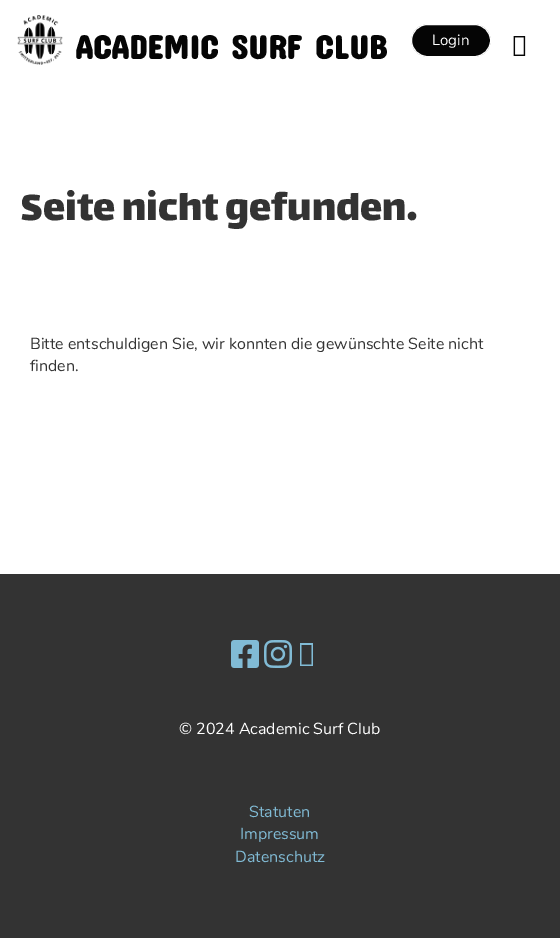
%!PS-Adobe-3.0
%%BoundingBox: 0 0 560 938
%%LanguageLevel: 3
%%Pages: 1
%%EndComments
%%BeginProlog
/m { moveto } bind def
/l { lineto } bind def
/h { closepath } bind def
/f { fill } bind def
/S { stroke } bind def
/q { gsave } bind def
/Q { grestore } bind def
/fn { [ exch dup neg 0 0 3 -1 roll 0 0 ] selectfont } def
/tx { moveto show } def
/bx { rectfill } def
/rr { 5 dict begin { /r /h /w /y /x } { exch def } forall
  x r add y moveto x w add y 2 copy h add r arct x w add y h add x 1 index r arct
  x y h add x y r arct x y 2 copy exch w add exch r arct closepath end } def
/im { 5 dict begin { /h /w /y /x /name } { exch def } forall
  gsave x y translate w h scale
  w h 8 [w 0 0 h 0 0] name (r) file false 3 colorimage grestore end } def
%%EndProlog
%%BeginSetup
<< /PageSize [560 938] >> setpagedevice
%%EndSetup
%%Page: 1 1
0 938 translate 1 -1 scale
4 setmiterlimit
1 setgray
0 0 560 938 bx
(image0.raw) 17 15 46 50 im
/ConcertOne-Bold 33.5 fn
0.02 setgray
(ACADEMIC SURF CLUB) 75 59 tx
411.5 24.5 79 32 16 rr q f Q
1 setgray
S
/Nunito-Regular 15 fn
(Login) 432 45 tx
(image1.raw) 513 36 13 20 im
/Lalezar-Regular 44.75 fn
0.2 setgray
(Seite nicht gefunden.) 20 220 tx
/Nunito-Regular 16 fn
(Bitte entschuldigen Sie, wir konnten die gewünschte Seite nicht) 30 349 tx
(finden.) 30 371 tx
0 574 560 364 bx
(image2.raw) 231 640 28 28 im
(image3.raw) 264 640 28 28 im
0.506 0.733 0.835 setrgbcolor
300 666 m 300 643 l 313 643 l 313 666 l h 301.5 664.5 m 311.5 664.5 l 311.5 645 l 301.5 645 l h f
1 setgray
(© 2024 Academic Surf Club) 179 734 tx
0.506 0.733 0.835 setrgbcolor
(Statuten) 249 817 tx
(Impressum) 240 839 tx
(Datenschutz) 235 862 tx
showpage
%%EOF
